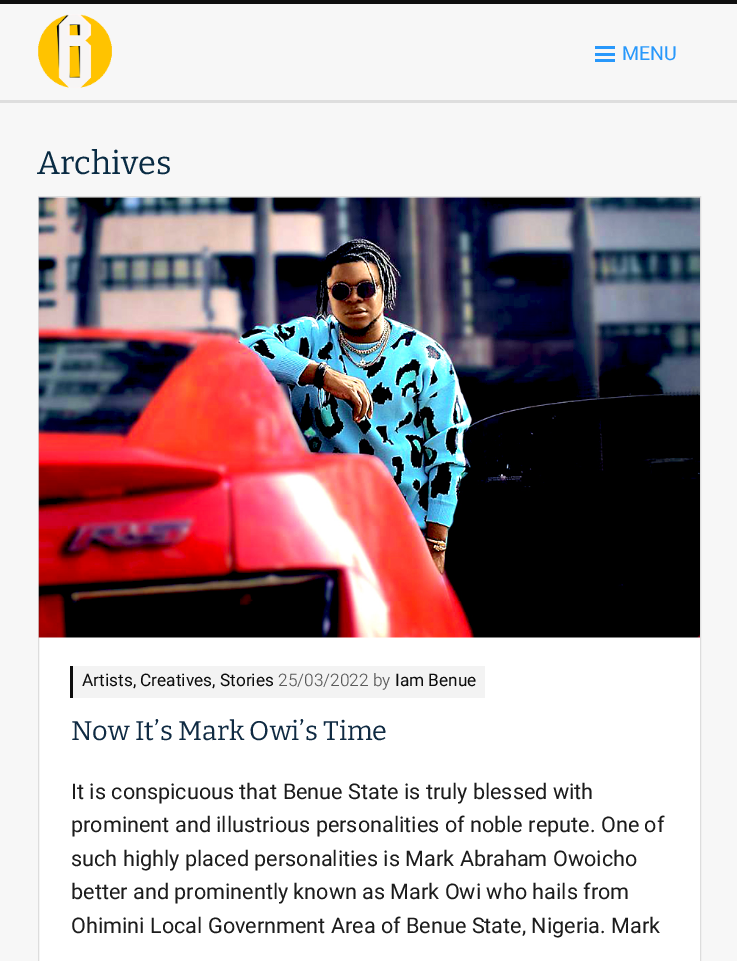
%!PS-Adobe-3.0
%%BoundingBox: 0 0 737 961
%%LanguageLevel: 3
%%Pages: 1
%%EndComments
%%BeginProlog
/m { moveto } bind def
/l { lineto } bind def
/h { closepath } bind def
/f { fill } bind def
/S { stroke } bind def
/q { gsave } bind def
/Q { grestore } bind def
/fn { [ exch dup neg 0 0 3 -1 roll 0 0 ] selectfont } def
/tx { moveto show } def
/bx { rectfill } def
/im { 5 dict begin { /h /w /y /x /name } { exch def } forall
  gsave x y translate w h scale
  w h 8 [w 0 0 h 0 0] name (r) file false 3 colorimage grestore end } def
%%EndProlog
%%BeginSetup
<< /PageSize [737 961] >> setpagedevice
%%EndSetup
%%Page: 1 1
0 961 translate 1 -1 scale
4 setmiterlimit
0.969 setgray
0 0 737 961 bx
0.059 setgray
0 0 737 4 bx
0.871 setgray
0 100 737 3 bx
(image0.raw) 38 14 74 74 im
0.157 0.596 0.984 setrgbcolor
595 53 20 3 bx
595 46 20 3 bx
595 59 20 3 bx
/Heebo-Regular 19.5 fn
(MENU) 622 60 tx
/Bitter-Thin 32.5 fn
0.035 0.169 0.263 setrgbcolor
(Archives) 37 174 tx
1 setgray
38.5 196.5 m 700.5 196.5 l 700.5 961.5 l 38.5 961.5 l h q f Q
0.867 setgray
S
(image1.raw) 38 197 662 441 im
0.953 setgray
73 666 412 32 bx
0.047 setgray
70 666 3 32 bx
/Heebo-Regular 17.25 fn
(Artists, Creatives, Stories) 82 686 tx
/Heebo-Light 17.25 fn
0.353 setgray
(25/03/2022 by) 278 686 tx
/Heebo-Regular 17.25 fn
0.047 setgray
(Iam Benue) 395 686 tx
/Bitter-Thin 27 fn
0.059 0.165 0.259 setrgbcolor
(Now It’s Mark Owi’s Time) 71 740 tx
/Heebo-Regular 21.6 fn
0.11 setgray
(It is conspicuous that Benue State is truly blessed with) 71 799 tx
(prominent and illustrious personalities of noble repute. One of) 71 832 tx
(such highly placed personalities is Mark Abraham Owoicho) 71 866 tx
(better and prominently known as Mark Owi who hails from) 71 899 tx
(Ohimini Local Government Area of Benue State, Nigeria. Mark) 71 933 tx
showpage
%%EOF
